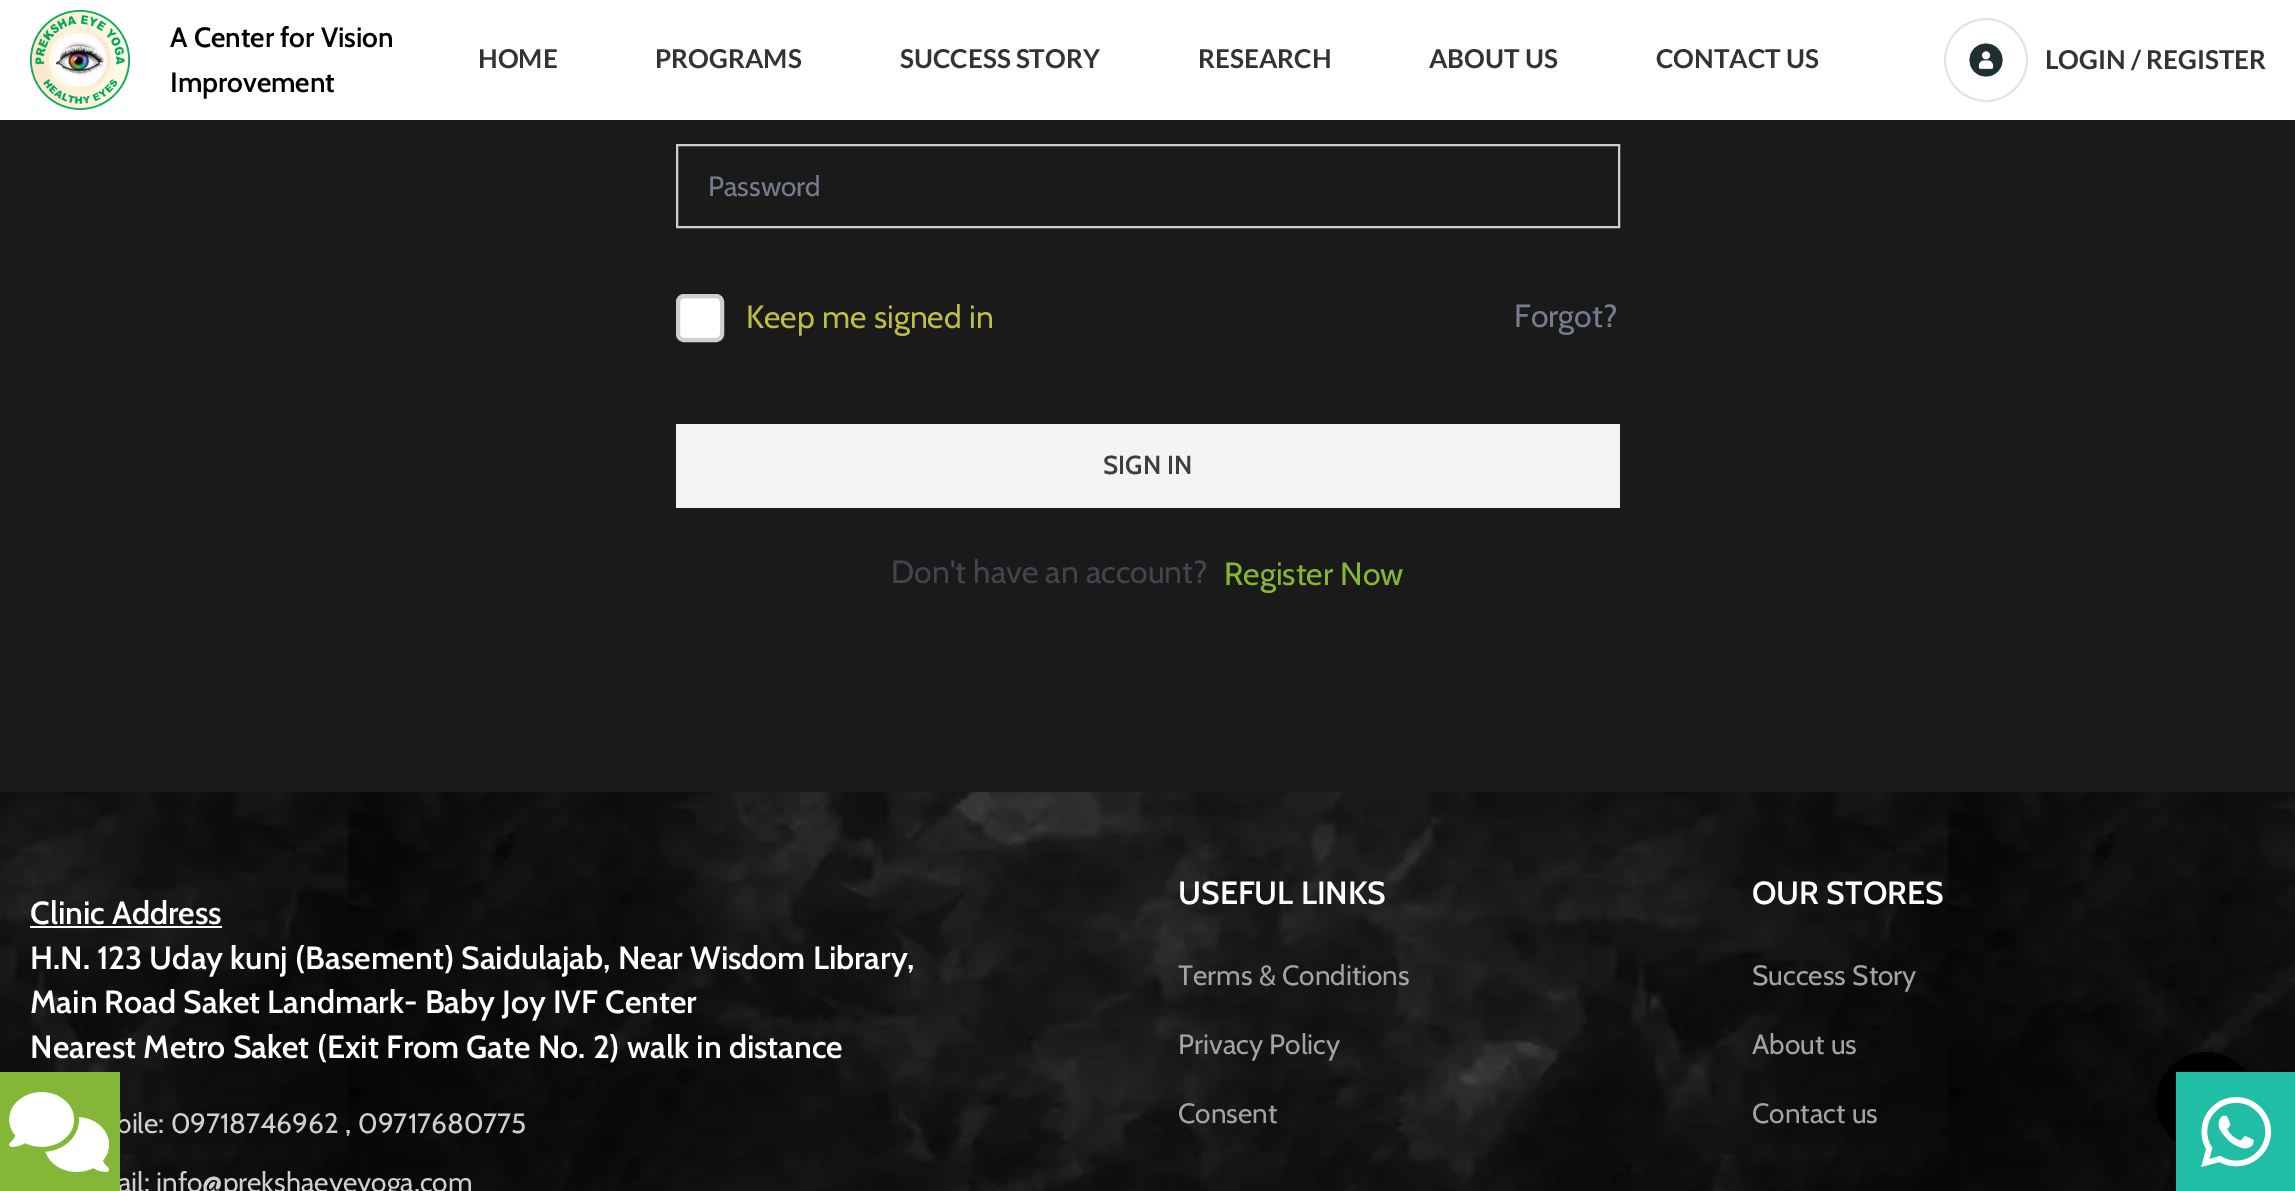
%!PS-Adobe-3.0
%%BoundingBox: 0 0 2295 1191
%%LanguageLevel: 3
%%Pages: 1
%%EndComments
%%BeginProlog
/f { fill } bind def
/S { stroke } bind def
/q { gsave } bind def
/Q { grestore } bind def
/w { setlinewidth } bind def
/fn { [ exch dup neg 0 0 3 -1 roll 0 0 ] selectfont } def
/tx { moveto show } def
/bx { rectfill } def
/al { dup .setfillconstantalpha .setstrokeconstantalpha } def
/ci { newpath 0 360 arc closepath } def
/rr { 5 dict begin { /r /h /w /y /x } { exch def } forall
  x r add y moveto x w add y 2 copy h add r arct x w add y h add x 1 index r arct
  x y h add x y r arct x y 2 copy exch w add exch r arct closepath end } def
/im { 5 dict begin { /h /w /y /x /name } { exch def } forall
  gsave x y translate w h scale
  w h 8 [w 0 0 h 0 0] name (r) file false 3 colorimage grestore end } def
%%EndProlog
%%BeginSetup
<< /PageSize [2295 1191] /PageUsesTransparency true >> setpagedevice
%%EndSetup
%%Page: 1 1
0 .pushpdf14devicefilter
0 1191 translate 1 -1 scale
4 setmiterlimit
0.102 setgray
0 0 2295 1191 bx
1 setgray
0 0 2295 120 bx
(image0.raw) 30 10 100 100 im
/Cabin-SemiBold 28 fn
0 setgray
(A Center for Vision) 170 47 tx
(Improvement) 170 92 tx
/Lato-Bold 26 fn
0.2 setgray
(HOME) 478 68 tx
(PROGRAMS) 655 68 tx
(SUCCESS STORY) 900 68 tx
(RESEARCH) 1198 68 tx
(ABOUT US) 1429 68 tx
(CONTACT US) 1656 68 tx
0.894 setgray
2 w
1986 60 41 ci S
(image1.raw) 1969 43 34 34 im
0.2 setgray
(LOGIN / REGISTER) 2045 69 tx
0.804 0.812 0.835 setrgbcolor
677 145 942 82 rectstroke
/Cabin-Regular 28 fn
0.459 0.486 0.557 setrgbcolor
(Password) 708 196 tx
1 setgray
678 296 44 44 6 rr q f Q
0.804 0.812 0.835 setrgbcolor
4 w
S
/Cabin-Regular 32 fn
0.737 0.745 0.275 setrgbcolor
(Keep me signed in) 746 328 tx
0.459 0.486 0.557 setrgbcolor
(Forgot?) 1514 327 tx
0.953 setgray
676 424 944 84 bx
/Cabin-SemiBold 26 fn
0.243 setgray
(SIGN IN) 1103 474 tx
/Cabin-Regular 32 fn
0.255 0.271 0.31 setrgbcolor
(Don't have an account?) 891 583 tx
0.514 0.718 0.208 setrgbcolor
(Register Now) 1224 585 tx
(image2.raw) 0 792 2295 399 im
/Cabin-SemiBold 32 fn
1 setgray
(Clinic Address) 30 924 tx
30 926 192 2 bx
(H.N. 123 Uday kunj \(Basement\) Saidulajab, Near Wisdom Library,) 30 969 tx
(Main Road Saket Landmark- Baby Joy IVF Center) 30 1013 tx
(Nearest Metro Saket \(Exit From Gate No. 2\) walk in distance) 30 1058 tx
/Cabin-Regular 28 fn
0.812 setgray
(bile: 09718746962 ,) 116 1133 tx
(09717680775) 358 1133 tx
(ail: info@prekshaeyeyoga.com) 118 1192 tx
/Cabin-SemiBold 32 fn
1 setgray
(USEFUL LINKS) 1178 904 tx
/Cabin-Regular 28 fn
0.639 setgray
(Terms & Conditions) 1178 985 tx
(Privacy Policy) 1178 1054 tx
(Consent) 1178 1123 tx
/Cabin-SemiBold 32 fn
1 setgray
(OUR STORES) 1752 904 tx
/Cabin-Regular 28 fn
0.639 setgray
(Success Story) 1752 985 tx
(About us) 1752 1054 tx
(Contact us) 1752 1123 tx
0.514 0.718 0.208 setrgbcolor
0 1072 120 119 bx
(image3.raw) 9 1092 101 80 im
0.9 al
0 setgray
2206 1102 50 ci f
1 al
0.122 0.745 0.647 setrgbcolor
2176 1072 119 119 bx
(image4.raw) 2201 1097 71 70 im
.poppdf14devicefilter showpage
%%EOF
